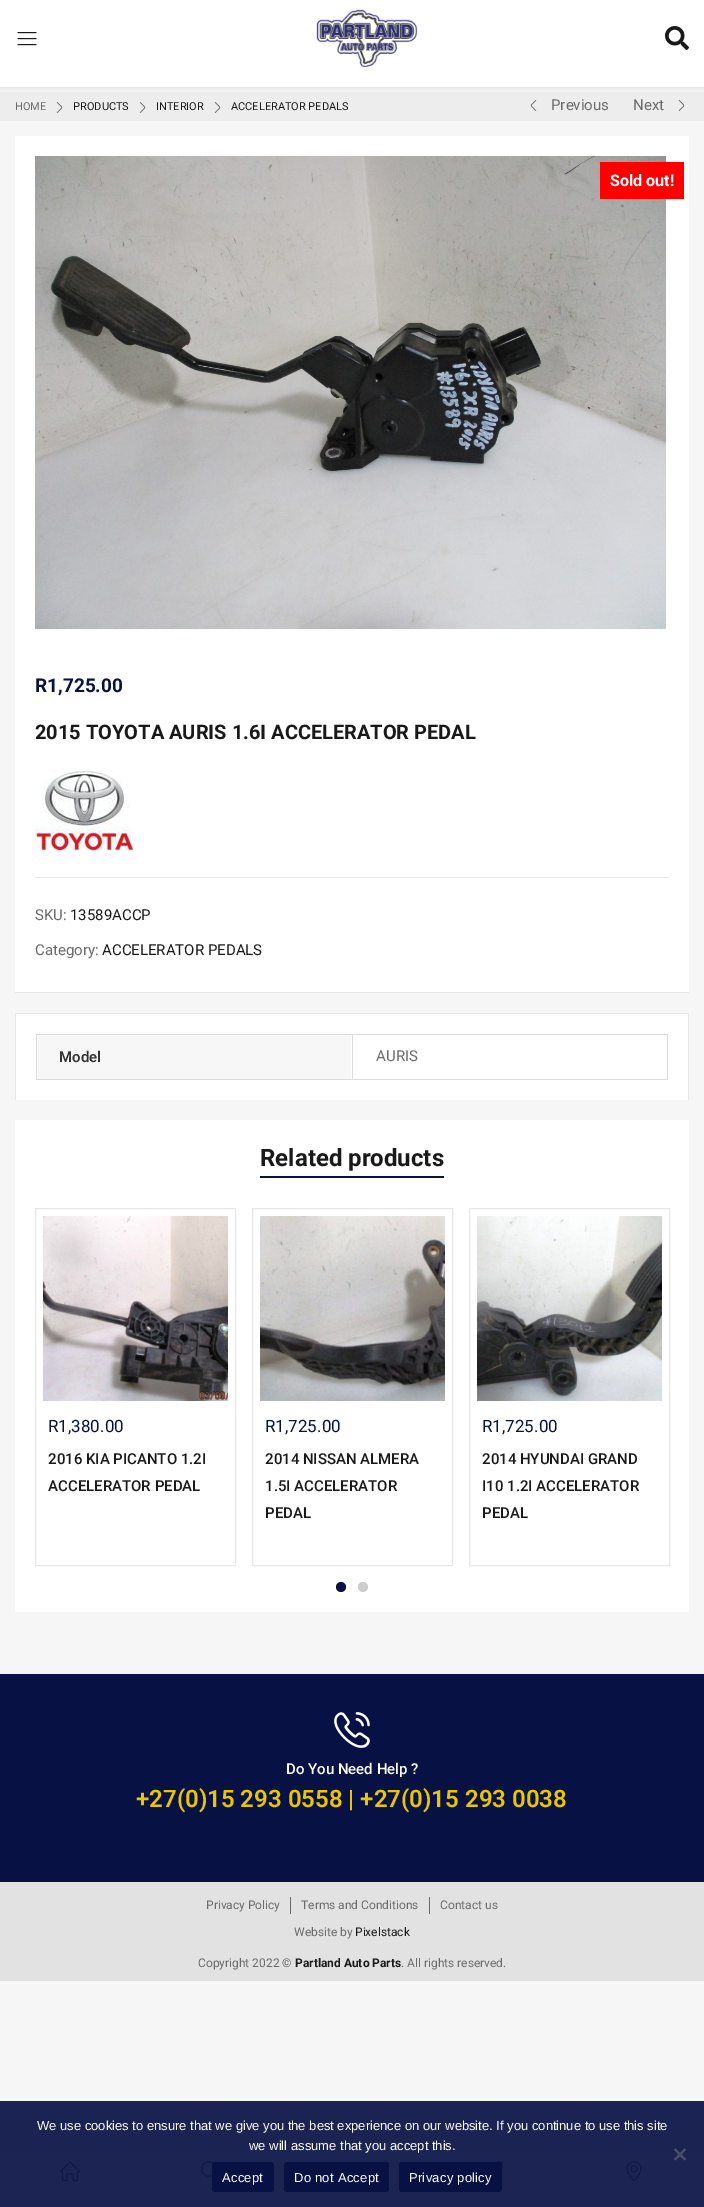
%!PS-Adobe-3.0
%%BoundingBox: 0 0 704 2207
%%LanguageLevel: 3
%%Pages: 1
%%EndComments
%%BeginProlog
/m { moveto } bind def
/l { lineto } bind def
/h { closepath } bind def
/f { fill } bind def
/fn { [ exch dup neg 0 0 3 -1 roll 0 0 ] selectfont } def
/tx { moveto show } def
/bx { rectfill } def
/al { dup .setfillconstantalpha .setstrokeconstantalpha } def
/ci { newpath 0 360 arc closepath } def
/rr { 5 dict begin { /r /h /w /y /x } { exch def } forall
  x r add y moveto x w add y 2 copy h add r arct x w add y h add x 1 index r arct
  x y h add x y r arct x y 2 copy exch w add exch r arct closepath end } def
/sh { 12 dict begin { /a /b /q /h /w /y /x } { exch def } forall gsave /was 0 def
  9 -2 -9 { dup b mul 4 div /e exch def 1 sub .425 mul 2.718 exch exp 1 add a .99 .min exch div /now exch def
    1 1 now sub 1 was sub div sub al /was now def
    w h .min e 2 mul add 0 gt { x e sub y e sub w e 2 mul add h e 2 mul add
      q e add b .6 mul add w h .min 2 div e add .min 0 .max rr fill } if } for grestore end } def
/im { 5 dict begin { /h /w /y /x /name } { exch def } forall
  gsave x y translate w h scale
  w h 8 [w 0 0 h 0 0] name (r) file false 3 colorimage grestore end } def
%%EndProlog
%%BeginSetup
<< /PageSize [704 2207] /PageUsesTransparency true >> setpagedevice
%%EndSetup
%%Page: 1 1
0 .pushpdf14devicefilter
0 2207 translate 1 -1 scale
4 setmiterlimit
0.965 setgray
0 0 704 2207 bx
0.102 0.137 0.322 setrgbcolor
0 2101 704 51 bx
0.929 setgray
0 92 704 29 bx
0 setgray
0 0 704 87 0 4 0.1 sh
1 setgray
0 0 704 87 bx
(image0.raw) 17 32 20 14 im
(image1.raw) 316 9 102 59 im
(image2.raw) 665 26 24 24 im
/Roboto-Regular 11 fn
0.42 setgray
(HOME) 15 110 tx
(image3.raw) 56 102 7 11 im
0.098 setgray
(PRODUCTS) 73 110 tx
(image3.raw) 139 102 7 11 im
(INTERIOR) 156 110 tx
(image3.raw) 214 102 7 11 im
(ACCELERATOR PEDALS) 231 110 tx
(image4.raw) 530 100 7 11 im
/Roboto-Regular 15 fn
0.42 setgray
(Previous) 551 110 tx
(Next) 633 110 tx
(image3.raw) 678 100 7 11 im
1 setgray
15 136 674 856 bx
0.906 setgray
15 992 674 1 bx
(image5.raw) 35 156 631 473 im
1 0 0 setrgbcolor
600 162 84 37 bx
/Roboto-Bold 16 fn
1 setgray
(Sold out!) 610 186 tx
/Roboto-Bold 19 fn
0.027 0.067 0.267 setrgbcolor
(R1,725.00) 35 692 tx
/Roboto-Bold 20 fn
0.098 setgray
(2015 TOYOTA AURIS 1.6I ACCELERATOR PEDAL) 35 739 tx
(image6.raw) 35 770 100 82 im
0.906 setgray
35 877 634 1 bx
/Roboto-Regular 15 fn
0.42 setgray
(SKU:) 35 920 tx
0.098 setgray
(13589ACCP) 70 920 tx
0.42 setgray
(Category:) 35 955 tx
0.098 setgray
(ACCELERATOR PEDALS) 102 955 tx
1 setgray
16 1014 672 86 bx
0.906 setgray
15 1013 674 1 bx
688 1013 1 87 bx
15 1013 1 87 bx
0.867 setgray
36 1034 632 1 bx
667 1034 1 46 bx
36 1034 1 46 bx
0.969 setgray
38 1035 313 44 bx
0.867 setgray
352 1079 316 1 bx
352 1034 1 46 bx
36 1079 317 1 bx
/Roboto-SemiBold 15 fn
0.2 setgray
(Model) 59 1062 tx
/Roboto-Regular 15 fn
0.42 setgray
(AURIS) 376 1061 tx
1 setgray
15 1120 674 492 bx
0.027 0.067 0.267 setrgbcolor
260 1176 184 2 bx
/Roboto-Bold 24 fn
0.098 setgray
(Related products) 260 1166 tx
0.906 setgray
35.5 1208.5 200 357 rectstroke
(image7.raw) 43 1216 185 185 im
/Roboto-Regular 17 fn
0.027 0.067 0.267 setrgbcolor
(R1,380.00) 48 1432 tx
/Roboto-Medium 15 fn
0.098 setgray
(2016 KIA PICANTO 1.2I) 48 1464 tx
(ACCELERATOR PEDAL) 48 1491 tx
0.906 setgray
252.5 1208.5 200 357 rectstroke
(image8.raw) 260 1216 185 185 im
/Roboto-Regular 17 fn
0.027 0.067 0.267 setrgbcolor
(R1,725.00) 265 1432 tx
/Roboto-Medium 15 fn
0.098 setgray
(2014 NISSAN ALMERA) 265 1464 tx
(1.5I ACCELERATOR) 265 1491 tx
(PEDAL) 265 1518 tx
0.906 setgray
469.5 1208.5 200 357 rectstroke
(image9.raw) 477 1216 185 185 im
/Roboto-Regular 17 fn
0.027 0.067 0.267 setrgbcolor
(R1,725.00) 482 1432 tx
/Roboto-Medium 15 fn
0.098 setgray
(2014 HYUNDAI GRAND) 482 1464 tx
(I10 1.2I ACCELERATOR) 482 1491 tx
(PEDAL) 482 1518 tx
0.027 0.067 0.267 setrgbcolor
341 1587 5 ci f
0.8 setgray
363 1587 5 ci f
0.027 0.067 0.267 setrgbcolor
0 1674 704 208 bx
(image10.raw) 334 1712 36 36 im
1 setgray
(Do You Need Help ?) 286 1774 tx
/Roboto-SemiBold 24 fn
0.918 0.776 0 setrgbcolor
(+27\(0\)15 293 0558 | +27\(0\)15 293 0038) 136 1807 tx
0.886 setgray
0 1882 704 99 bx
0.42 setgray
290 1897 1 17 bx
/Roboto-Regular 12 fn
(Privacy Policy) 206 1909 tx
429 1897 1 17 bx
(Terms and Conditions) 301 1909 tx
(Contact us) 440 1909 tx
(Website by) 294 1936 tx
0.098 setgray
(Pixelstack) 355 1936 tx
0.42 setgray
(Copyright 2022 ©) 198 1967 tx
/Roboto-Bold 12 fn
0.098 setgray
(Partland Auto Parts) 295 1967 tx
/Roboto-Regular 12 fn
0.42 setgray
(. All rights reserved.) 401 1967 tx
0.106 0.141 0.325 setrgbcolor
0 2152 704 55 bx
(image11.raw) 60 2161 20 21 im
(image12.raw) 201 2161 13 16 im
(image13.raw) 496 2161 7 8 im
(image14.raw) 626 2161 16 21 im
/LiberationSans-Regular 13 fn
1 setgray
(We use cookies to ensure that we give you the best experience on our website. If you continue to use this site) 37 2130 tx
(we will assume that you accept this.) 249 2150 tx
0.302 0.322 0.412 setrgbcolor
684.5 2148.5 m 686 2150 l 675.5 2160.5 l 674 2159 l h f
674 2150 m 675.5 2148.5 l 686 2159 l 684.5 2160.5 l h f
0.027 0.067 0.267 setrgbcolor
212 2162 62 30 3 rr f
1 setgray
222 2182 m 0.25 0 (Accept) ashow
0.027 0.067 0.267 setrgbcolor
284 2162 105 30 3 rr f
1 setgray
294 2182 m 0.25 0 (Do not Accept) ashow
0.027 0.067 0.267 setrgbcolor
399 2162 103 30 3 rr f
1 setgray
409 2182 m 0.25 0 (Privacy policy) ashow
.poppdf14devicefilter showpage
%%EOF
